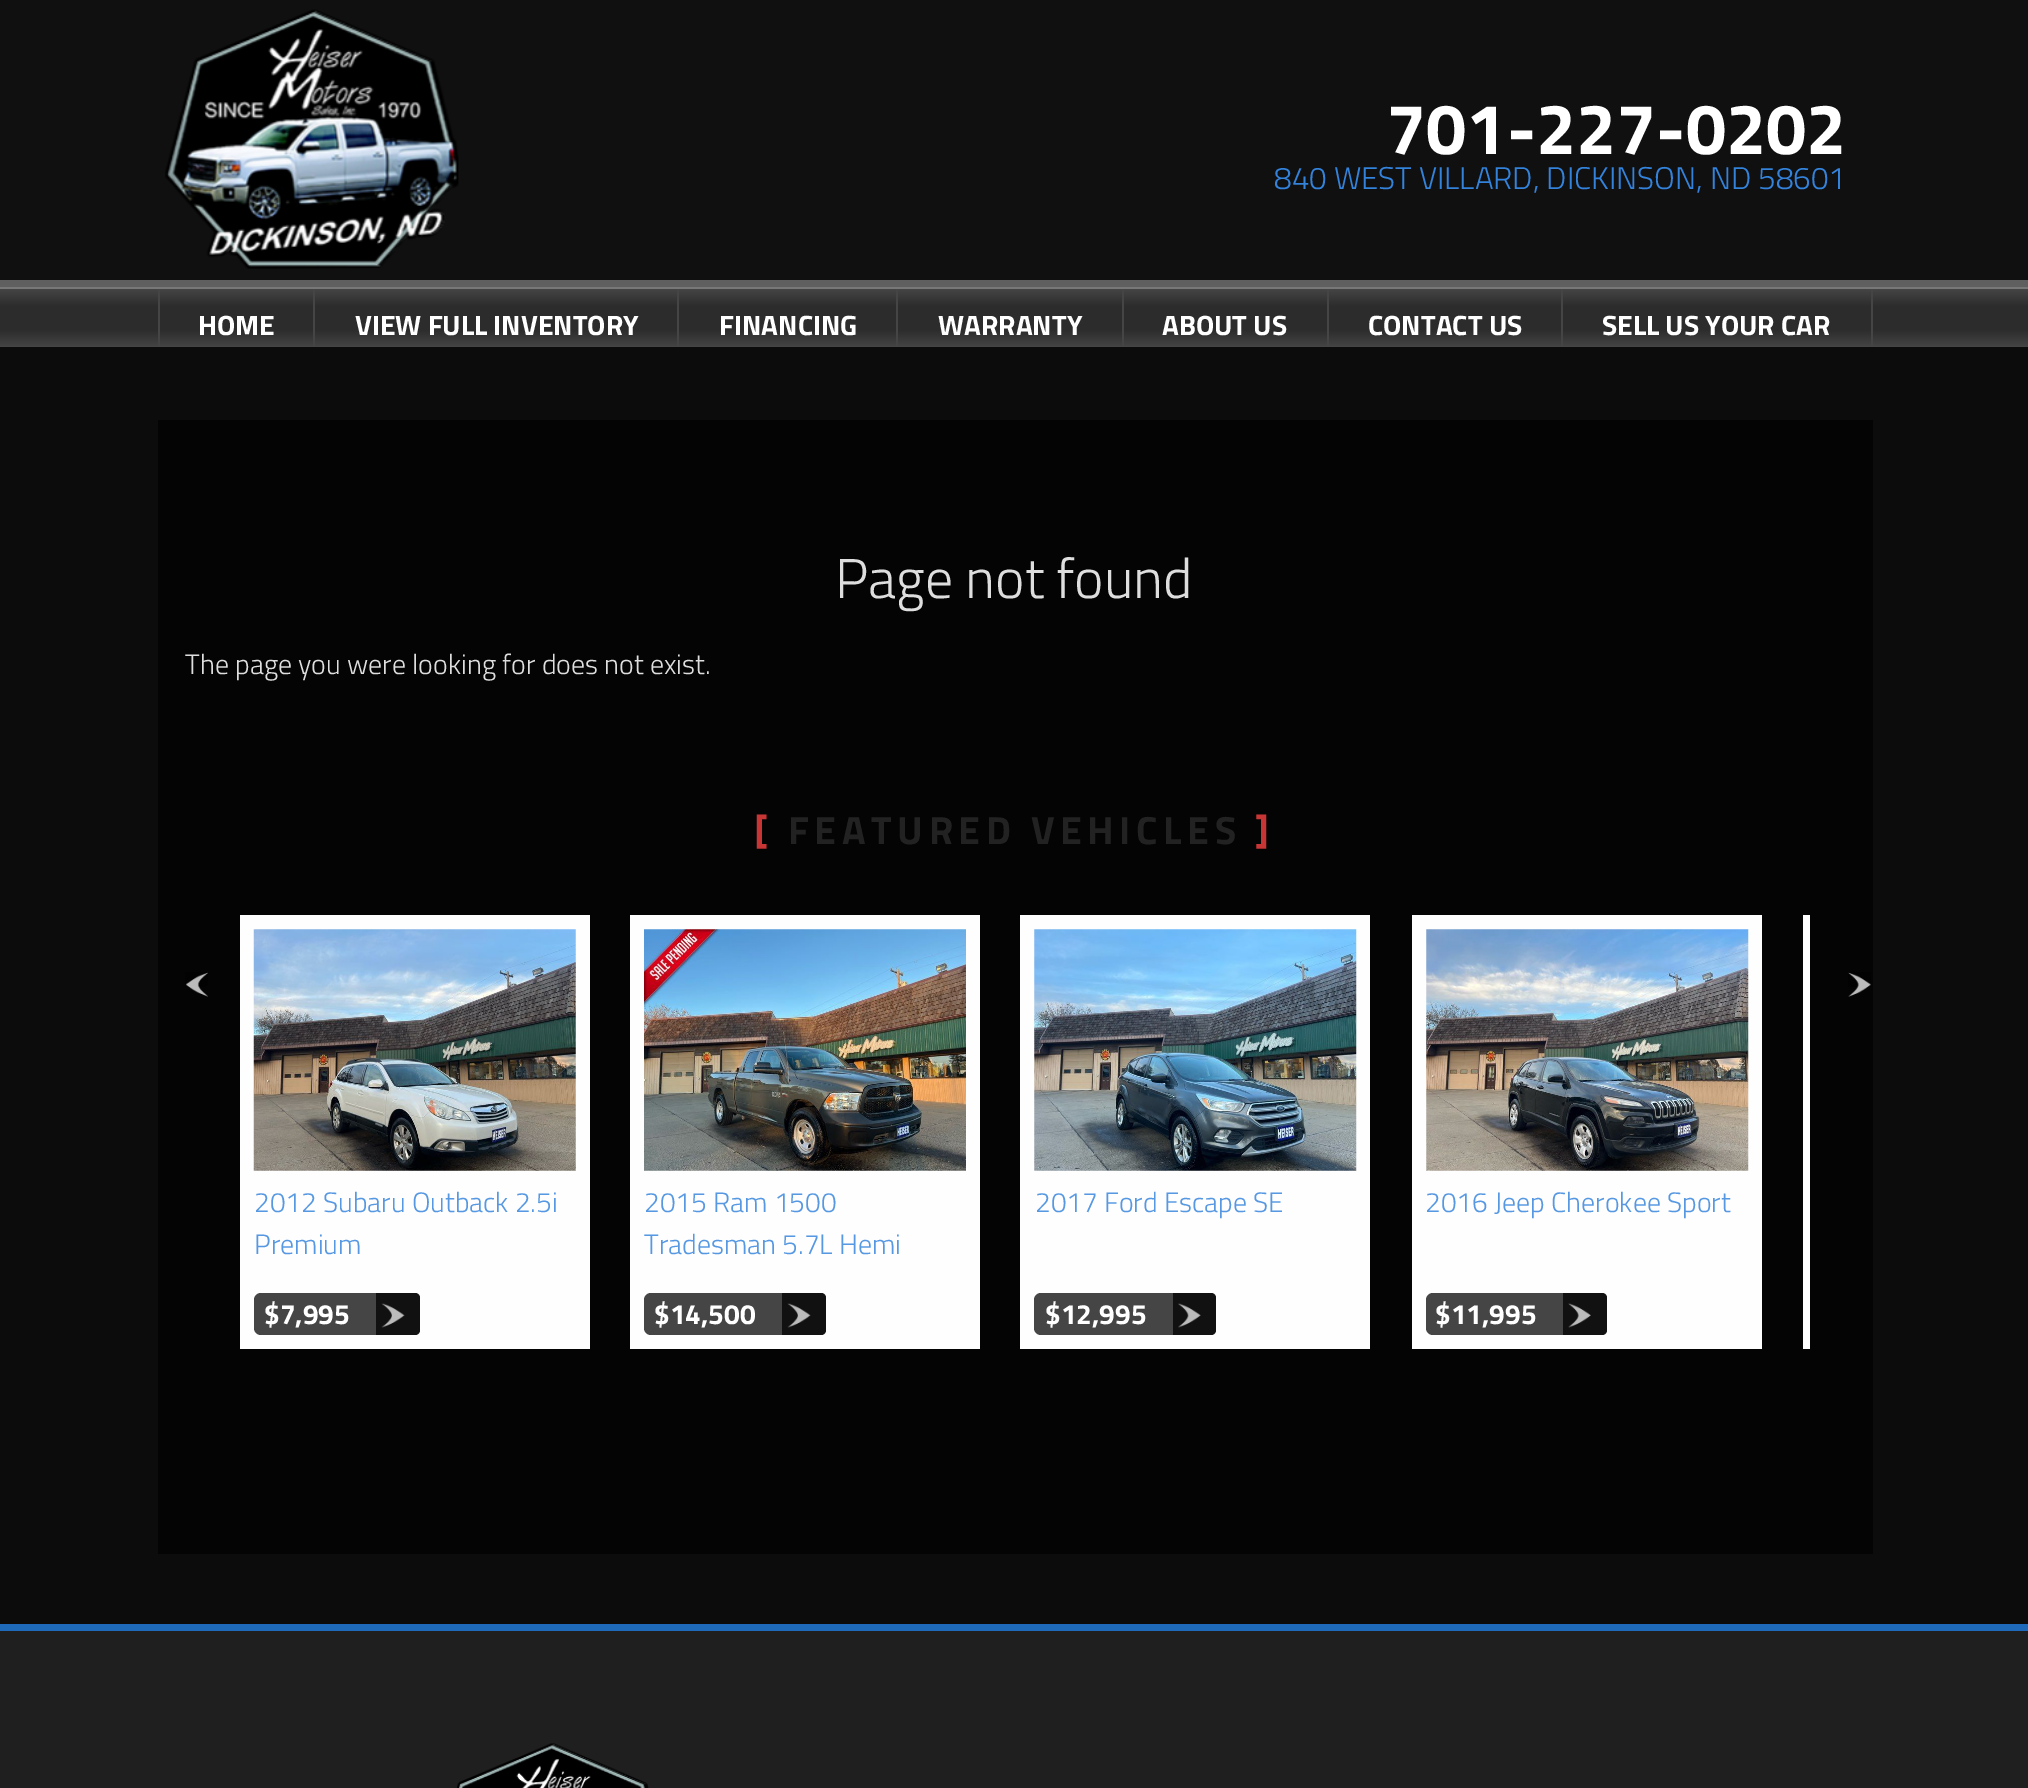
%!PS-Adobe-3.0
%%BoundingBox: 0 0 2028 1788
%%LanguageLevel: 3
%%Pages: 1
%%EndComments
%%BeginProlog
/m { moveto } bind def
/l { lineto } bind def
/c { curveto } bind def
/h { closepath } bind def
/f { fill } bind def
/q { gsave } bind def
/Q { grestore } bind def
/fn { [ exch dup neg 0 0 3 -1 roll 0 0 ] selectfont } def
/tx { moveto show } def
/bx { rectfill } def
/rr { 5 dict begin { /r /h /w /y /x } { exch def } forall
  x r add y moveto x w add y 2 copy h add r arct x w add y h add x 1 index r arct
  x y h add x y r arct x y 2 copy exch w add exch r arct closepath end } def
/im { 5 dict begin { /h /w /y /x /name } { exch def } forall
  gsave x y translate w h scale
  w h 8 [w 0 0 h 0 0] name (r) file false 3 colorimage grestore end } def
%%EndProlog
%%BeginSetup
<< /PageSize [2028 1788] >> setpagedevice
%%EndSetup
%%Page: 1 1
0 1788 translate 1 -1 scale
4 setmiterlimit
0.047 setgray
0 0 2028 1788 bx
0.063 setgray
0 0 2028 280 bx
(image0.raw) 165 9 294 260 im
/TitilliumWeb-Bold 71.75 fn
1 setgray
(701-227-0202) 1386 154 tx
/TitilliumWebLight-Light 31.4 fn
0.2 0.514 0.863 setrgbcolor
(840 WEST VILLARD, DICKINSON, ND 58601) 1274 189 tx
q 0 289 m 2028 289 l 2028 347 l 0 347 l h clip newpath
<< /ShadingType 2 /ColorSpace /DeviceRGB /Coords [1014 289 1014 347] /Extend [true true] /Function << /FunctionType 3 /Domain [0 1] /Functions [<< /FunctionType 2 /Domain [0 1] /C0 [0.271 0.271 0.271] /C1 [0.173 0.173 0.173] /N 1 >> << /FunctionType 2 /Domain [0 1] /C0 [0.173 0.173 0.173] /C1 [0.173 0.173 0.173] /N 1 >> << /FunctionType 2 /Domain [0 1] /C0 [0.173 0.173 0.173] /C1 [0.271 0.271 0.271] /N 1 >>] /Bounds [0.3 0.7] /Encode [0 1 0 1 0 1] >> >> shfill Q
0.373 setgray
0 280 2028 7 bx
0.471 setgray
0 287 2028 2 bx
0.271 setgray
313 289 2 58 bx
158 289 2 58 bx
/TitilliumWeb-Bold 28 fn
1 setgray
(HOME) 198 335 tx
0.271 setgray
677 289 2 58 bx
1 setgray
(VIEW FULL INVENTORY) 355 335 tx
0.271 setgray
896 289 2 58 bx
1 setgray
(FINANCING) 719 335 tx
0.271 setgray
1122 289 2 58 bx
1 setgray
(WARRANTY) 938 335 tx
0.271 setgray
1327 289 2 58 bx
1 setgray
(ABOUT US) 1162 335 tx
0.271 setgray
1561 289 2 58 bx
1 setgray
(CONTACT US) 1368 335 tx
0.271 setgray
1871 289 2 58 bx
1 setgray
(SELL US YOUR CAR) 1602 335 tx
0.016 setgray
158 420 1715 1134 bx
/TitilliumWebLight-Light 56 fn
0.871 setgray
(Page not found) 835 598 tx
/TitilliumWebLight-Light 28 fn
(The page you were looking for does not exist.) 185 674 tx
/TitilliumWeb-Bold 39.25 fn
0.78 0.208 0.208 setrgbcolor
754 844 m 5.6 0 ([) ashow
0.133 setgray
788 844 m 5.6 0 (FEATURED VEHICLES) ashow
0.78 0.208 0.208 setrgbcolor
1255 844 m 5.6 0 (]) ashow
(image1.raw) 185 972 23 25 im
(image2.raw) 1848 972 23 25 im
0.996 setgray
240 915 350 434 bx
(image3.raw) 253 929 323 242 im
/TitilliumWebLight-Light 28 fn
0.337 0.596 0.886 setrgbcolor
(2012 Subaru Outback 2.5i) 254 1212 tx
(Premium) 254 1254 tx
0.271 setgray
254 1293 166 42 7 rr f
/TitilliumWeb-Bold 28 fn
1 setgray
($7,995) 264 1324 tx
0.067 setgray
376 1293 m 415 1293 l 418 1293 420 1295 420 1298 c 420 1330 l 420 1333 418 1335 415 1335 c 376 1335 l h f
(image4.raw) 381 1303 24 25 im
0.996 setgray
630 915 350 434 bx
(image5.raw) 644 929 322 242 im
/TitilliumWebLight-Light 28 fn
0.337 0.596 0.886 setrgbcolor
(2015 Ram 1500) 644 1212 tx
(Tradesman 5.7L Hemi) 644 1254 tx
0.271 setgray
644 1293 182 42 7 rr f
/TitilliumWeb-Bold 28 fn
1 setgray
($14,500) 654 1324 tx
0.067 setgray
782 1293 m 821 1293 l 824 1293 826 1295 826 1298 c 826 1330 l 826 1333 824 1335 821 1335 c 782 1335 l h f
(image6.raw) 787 1303 24 25 im
0.996 setgray
1020 915 350 434 bx
(image7.raw) 1034 929 323 242 im
/TitilliumWebLight-Light 28 fn
0.337 0.596 0.886 setrgbcolor
(2017 Ford Escape SE) 1035 1212 tx
0.271 setgray
1034 1293 182 42 7 rr f
/TitilliumWeb-Bold 28 fn
1 setgray
($12,995) 1045 1324 tx
0.067 setgray
1173 1293 m 1211 1293 l 1214 1293 1216 1295 1216 1298 c 1216 1330 l 1216 1333 1214 1335 1211 1335 c 1173 1335 l h f
(image8.raw) 1178 1303 23 25 im
0.996 setgray
1412 915 350 434 bx
(image9.raw) 1426 929 323 242 im
/TitilliumWebLight-Light 28 fn
0.337 0.596 0.886 setrgbcolor
(2016 Jeep Cherokee Sport) 1425 1212 tx
0.271 setgray
1426 1293 181 42 7 rr f
/TitilliumWeb-Bold 28 fn
1 setgray
($11,995) 1435 1324 tx
0.067 setgray
1563 1293 m 1602 1293 l 1605 1293 1607 1295 1607 1298 c 1607 1330 l 1607 1333 1605 1335 1602 1335 c 1563 1335 l h f
(image10.raw) 1568 1303 23 25 im
0.996 setgray
1803 915 7 434 bx
0.122 setgray
0 1631 2028 157 bx
0.125 0.416 0.737 setrgbcolor
0 1624 2028 7 bx
(image11.raw) 456 1743 193 45 im
showpage
%%EOF
